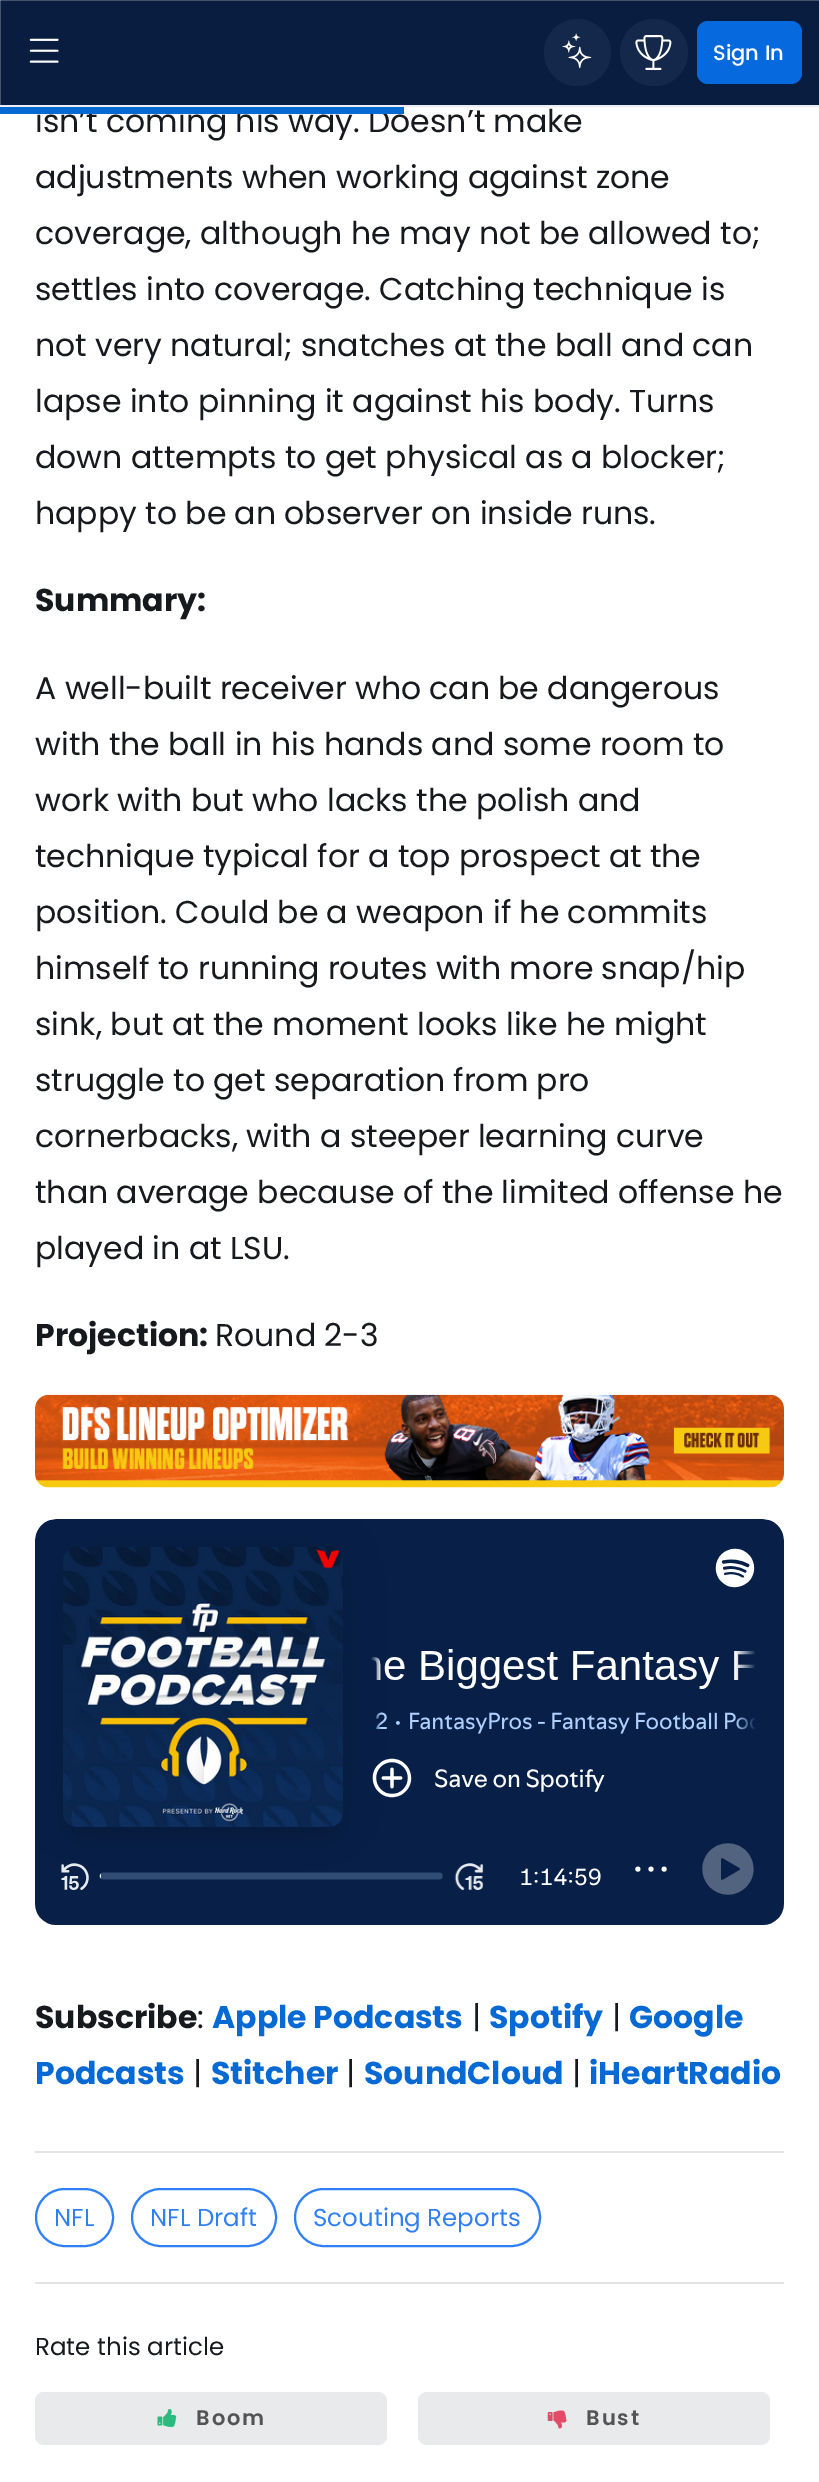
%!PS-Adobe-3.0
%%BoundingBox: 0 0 819 2482
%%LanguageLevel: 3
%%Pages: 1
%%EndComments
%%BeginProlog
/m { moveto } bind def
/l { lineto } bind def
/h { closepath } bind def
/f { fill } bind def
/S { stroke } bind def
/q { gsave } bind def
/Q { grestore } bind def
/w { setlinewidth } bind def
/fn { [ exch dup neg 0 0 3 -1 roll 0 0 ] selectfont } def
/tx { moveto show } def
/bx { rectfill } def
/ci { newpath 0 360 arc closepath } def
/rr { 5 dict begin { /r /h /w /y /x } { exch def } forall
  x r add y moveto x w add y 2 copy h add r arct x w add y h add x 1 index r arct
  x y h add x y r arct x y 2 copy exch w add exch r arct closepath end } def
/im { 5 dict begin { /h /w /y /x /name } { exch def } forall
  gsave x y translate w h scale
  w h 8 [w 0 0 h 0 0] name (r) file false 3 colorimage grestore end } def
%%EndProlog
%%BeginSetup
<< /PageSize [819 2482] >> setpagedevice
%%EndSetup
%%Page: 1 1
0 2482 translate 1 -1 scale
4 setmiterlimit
1 setgray
0 0 819 2482 bx
0.031 0.114 0.247 setrgbcolor
-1 -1 m 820 -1 l 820 106 l -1 106 l h q f Q
0.922 0.933 0.957 setrgbcolor
2 w
S
(image0.raw) 29 38 30 25 im
0.075 0.157 0.29 setrgbcolor
577.5 52.5 33.5 ci f
(image1.raw) 562 33 30 36 im
620 19 68 67 33.5 rr f
(image2.raw) 635 35 37 35 im
0.027 0.412 0.871 setrgbcolor
697 21 105 63 11 rr f
/Poppins-Medium 21 fn
1 setgray
(Sign In) 713 60 tx
/Poppins-Regular 31.5 fn
0.086 0.098 0.114 setrgbcolor
(isn’t coming his way. Doesn’t make) 35 132 tx
(adjustments when working against zone) 35 188 tx
(coverage, although he may not be allowed to;) 35 244 tx
(settles into coverage. Catching technique is) 35 300 tx
(not very natural; snatches at the ball and can) 35 356 tx
(lapse into pinning it against his body. Turns) 35 412 tx
(down attempts to get physical as a blocker;) 35 468 tx
(happy to be an observer on inside runs.) 35 524 tx
/Poppins-Bold 31.5 fn
(Summary:) 35 611 tx
/Poppins-Regular 31.5 fn
(A well-built receiver who can be dangerous) 35 699 tx
(with the ball in his hands and some room to) 35 755 tx
(work with but who lacks the polish and) 35 811 tx
(technique typical for a top prospect at the) 35 867 tx
(position. Could be a weapon if he commits) 35 923 tx
(himself to running routes with more snap/hip) 35 979 tx
(sink, but at the moment looks like he might) 35 1035 tx
(struggle to get separation from pro) 35 1091 tx
(cornerbacks, with a steeper learning curve) 35 1147 tx
(than average because of the limited offense he) 35 1203 tx
(played in at LSU.) 35 1259 tx
/Poppins-Bold 31.5 fn
(Projection:) 35 1346 tx
/Poppins-Regular 31.5 fn
(Round 2-3) 215 1346 tx
(image3.raw) 35 1394 749 94 im
(image4.raw) 35 1519 749 406 im
/Poppins-Bold 31.5 fn
(Subscribe) 35 2028 tx
/Poppins-Regular 31.5 fn
(:) 197 2028 tx
/Poppins-Bold 31.5 fn
0.027 0.412 0.827 setrgbcolor
(Apple Podcasts) 212 2028 tx
/Poppins-Regular 31.5 fn
0.086 0.098 0.114 setrgbcolor
(|) 472 2028 tx
/Poppins-Bold 31.5 fn
0.027 0.412 0.827 setrgbcolor
(Spotify) 489 2028 tx
/Poppins-Regular 31.5 fn
0.086 0.098 0.114 setrgbcolor
(|) 612 2028 tx
/Poppins-Bold 31.5 fn
0.027 0.412 0.827 setrgbcolor
(Google) 629 2028 tx
(Podcasts) 35 2084 tx
/Poppins-Regular 31.5 fn
0.086 0.098 0.114 setrgbcolor
(|) 193 2084 tx
/Poppins-Bold 31.5 fn
0.027 0.412 0.827 setrgbcolor
(Stitcher) 211 2084 tx
/Poppins-Regular 31.5 fn
0.086 0.098 0.114 setrgbcolor
(|) 346 2084 tx
/Poppins-Bold 31.5 fn
0.027 0.412 0.827 setrgbcolor
(SoundCloud) 364 2084 tx
/Poppins-Regular 31.5 fn
0.086 0.098 0.114 setrgbcolor
(|) 572 2084 tx
/Poppins-Bold 31.5 fn
0.027 0.412 0.827 setrgbcolor
(iHeartRadio) 589 2084 tx
0.89 setgray
35 2151 749 2 bx
35 2282 749 2 bx
0.184 0.498 0.965 setrgbcolor
36 2189 77 57 28.5 rr S
/Poppins-Regular 24.5 fn
(NFL) 54 2226 tx
132 2189 144 57 28.5 rr S
(NFL Draft) 150 2226 tx
295 2189 245 57 28.5 rr S
(Scouting Reports) 313 2226 tx
0.086 0.098 0.114 setrgbcolor
(Rate this article) 35 2355 tx
0.91 0.918 0.922 setrgbcolor
35 2392 352 53 9 rr f
(image5.raw) 157 2409 20 18 im
/Poppins-SemiBold 21 fn
0.325 setgray
196 2425 m 2 0 (Boom) ashow
0.91 0.918 0.922 setrgbcolor
418 2392 352 53 9 rr f
(image6.raw) 547 2410 20 19 im
0.325 setgray
586 2425 m 2 0 (Bust) ashow
0.027 0.412 0.827 setrgbcolor
0 107 404 7 bx
showpage
%%EOF
